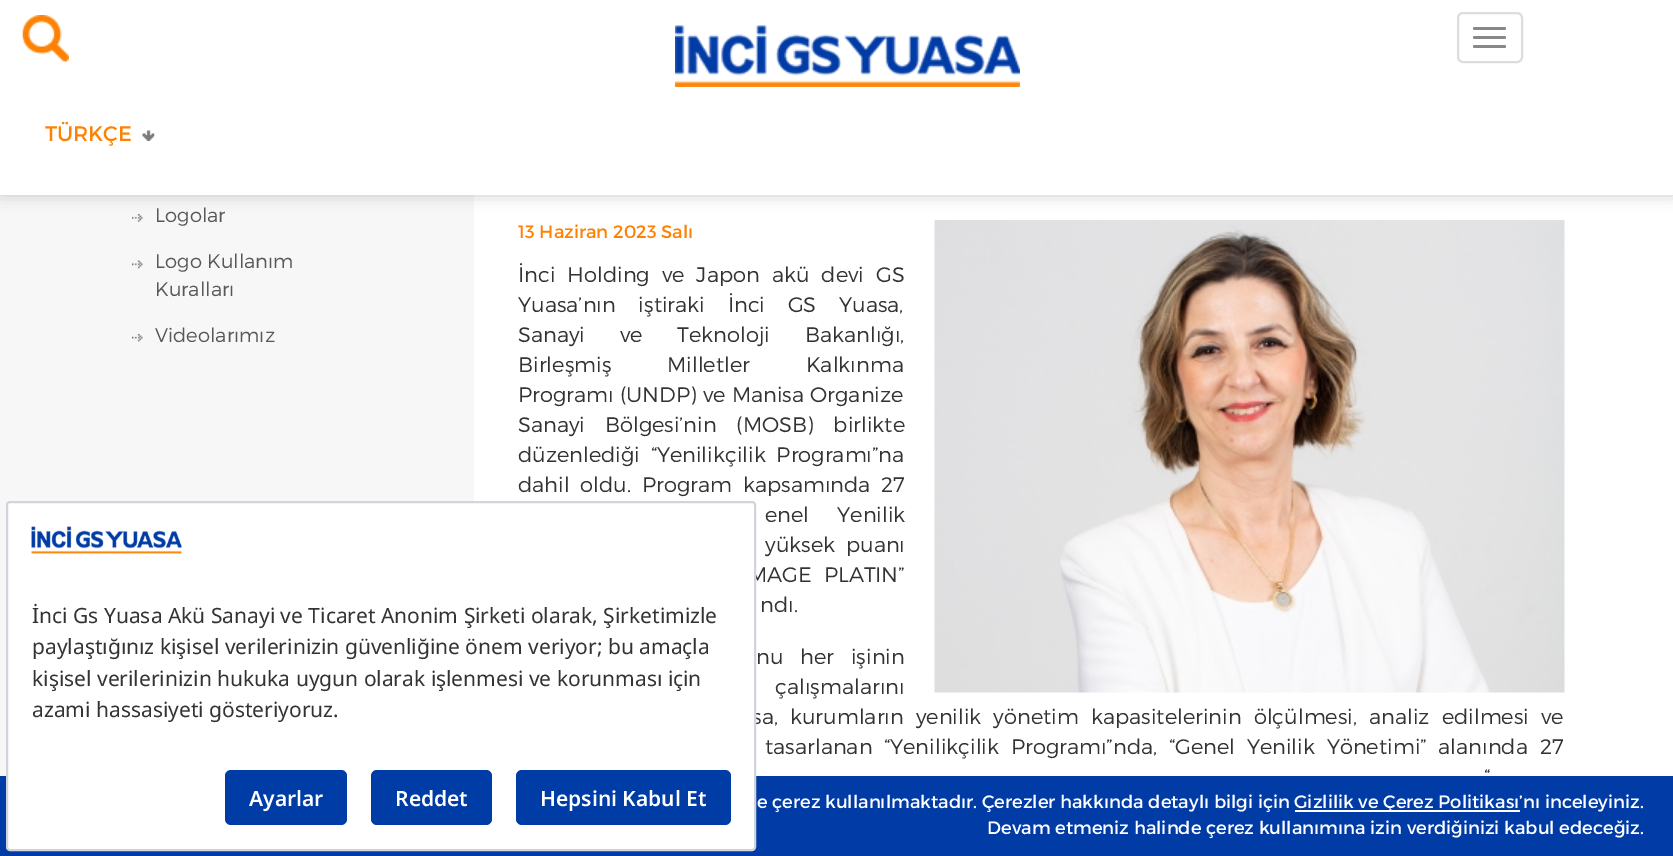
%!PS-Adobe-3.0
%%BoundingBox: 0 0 1673 856
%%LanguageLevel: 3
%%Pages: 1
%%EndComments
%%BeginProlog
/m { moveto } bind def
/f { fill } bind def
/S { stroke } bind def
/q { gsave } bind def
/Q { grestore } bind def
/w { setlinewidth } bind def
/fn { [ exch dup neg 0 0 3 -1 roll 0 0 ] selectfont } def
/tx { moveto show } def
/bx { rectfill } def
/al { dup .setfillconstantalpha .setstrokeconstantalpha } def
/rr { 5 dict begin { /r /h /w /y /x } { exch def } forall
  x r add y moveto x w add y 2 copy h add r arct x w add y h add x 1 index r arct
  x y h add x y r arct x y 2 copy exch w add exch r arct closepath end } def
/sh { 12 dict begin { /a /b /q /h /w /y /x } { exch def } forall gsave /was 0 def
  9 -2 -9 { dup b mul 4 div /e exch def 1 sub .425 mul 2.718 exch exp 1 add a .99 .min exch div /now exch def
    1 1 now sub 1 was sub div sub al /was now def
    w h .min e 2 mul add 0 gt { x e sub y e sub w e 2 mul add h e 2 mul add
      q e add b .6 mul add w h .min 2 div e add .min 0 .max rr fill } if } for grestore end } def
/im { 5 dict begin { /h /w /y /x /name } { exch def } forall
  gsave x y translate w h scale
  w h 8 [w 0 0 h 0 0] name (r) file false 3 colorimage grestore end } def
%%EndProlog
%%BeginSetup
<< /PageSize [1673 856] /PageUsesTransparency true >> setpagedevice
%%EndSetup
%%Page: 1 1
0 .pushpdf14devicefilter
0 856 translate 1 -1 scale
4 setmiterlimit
1 setgray
0 0 1673 856 bx
0.969 setgray
110 195 364 306 bx
0 195 110 581 bx
(image3.raw) 132 214 11 8 im
0 setgray
0 0 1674 195 0 7.5 0.2 sh
1 setgray
0 0 1673 195 bx
(image0.raw) 22 15 47 47 im
(image1.raw) 675 25 345 62 im
0.867 setgray
2 w
1458 13 64 49 5 rr S
0.533 setgray
1473 27 33 3 1.5 rr f
1473 36 33 3 1.5 rr f
1473 45 33 3 1.5 rr f
(image2.raw) 142 130 13 11 im
/Montserrat-Regular 21 fn
0.992 0.51 0.016 setrgbcolor
(TÜRKÇE) 45 141 tx
/Montserrat-Light 19.5 fn
0.357 0.341 0.349 setrgbcolor
(Logolar) 155 222 tx
(image4.raw) 132 260 11 9 im
(Logo Kullanım) 155 268 tx
(Kuralları) 155 296 tx
(image5.raw) 132 334 11 8 im
(Videolarımız) 155 342 tx
/Montserrat-Regular 18 fn
0.992 0.51 0.016 setrgbcolor
(13 Haziran 2023 Salı) 518 238 tx
(image6.raw) 934 220 631 473 im
/Montserrat-Light 21 fn
0.2 setgray
518 282 m 6.25 0 32 (İnci Holding ve Japon akü devi GS) widthshow
518 312 m 17 0 32 (Yuasa’nın iştiraki İnci GS Yuasa,) widthshow
518 342 m 29 0 32 (Sanayi ve Teknoloji Bakanlığı,) widthshow
518 372 m 50 0 32 (Birleşmiş Milletler Kalkınma) widthshow
518 402 m 0.5 0 32 (Programı \(UNDP\) ve Manisa Organize) widthshow
518 432 m 14 0 32 (Sanayi Bölgesi’nin \(MOSB\) birlikte) widthshow
518 462 m 5 0 32 (düzenlediği “Yenilikçilik Programı”na) widthshow
518 492 m 5 0 32 (dahil oldu. Program kapsamında 27) widthshow
765 522 m 22 0 32 (enel Yenilik) widthshow
765 552 m 5 0 32 (yüksek puanı) widthshow
748 582 m 6 0 32 (MAGE PLATIN”) widthshow
(ndı.) 760 612 tx
756 664 m 11 0 32 (nu her işinin) widthshow
775 694 m 28 0 32 (çalışmalarını) widthshow
752 724 m 6.25 0 32 (sa, kurumların yenilik yönetim kapasitelerinin ölçülmesi, analiz edilmesi ve) widthshow
765 754 m 6 0 32 (tasarlanan “Yenilikçilik Programı”nda, “Genel Yenilik Yönetimi” alanında 27) widthshow
1484 784 m 1 0 32 (“) widthshow
0.004 0.235 0.651 setrgbcolor
0 776 1673 80 bx
/Montserrat-Regular 18 fn
1 setgray
(e çerez kullanılmaktadır. Çerezler hakkında detaylı bilgi için) 757 808 tx
1295 810 225 2 bx
(Gizlilik ve Çerez Politikası’nı inceleyiniz.) 1294 808 tx
(Devam etmeniz halinde çerez kullanımına izin verdiğinizi kabul edeceğiz.) 987 834 tx
7 502 748 348 3 rr q f Q
0.82 0.835 0.859 setrgbcolor
S
(image7.raw) 31 526 151 28 im
/NotoSans-Regular 21 fn
0.2 setgray
(İnci Gs Yuasa Akü Sanayi ve Ticaret Anonim Şirketi olarak, Şirketimizle) 32 623 tx
(paylaştığınız kişisel verilerinizin güvenliğine önem veriyor; bu amaçla) 32 654 tx
(kişisel verilerinizin hukuka uygun olarak işlenmesi ve korunması için) 32 686 tx
(azami hassasiyeti gösteriyoruz.) 32 717 tx
0 0.235 0.651 setrgbcolor
225 770 122 55 6 rr f
/NotoSans-SemiBold 21 fn
1 setgray
(Ayarlar) 249 806 tx
0 0.235 0.651 setrgbcolor
371 770 121 55 6 rr f
1 setgray
(Reddet) 395 806 tx
0 0.235 0.651 setrgbcolor
516 770 215 55 6 rr f
1 setgray
(Hepsini Kabul Et) 540 806 tx
.poppdf14devicefilter showpage
%%EOF
